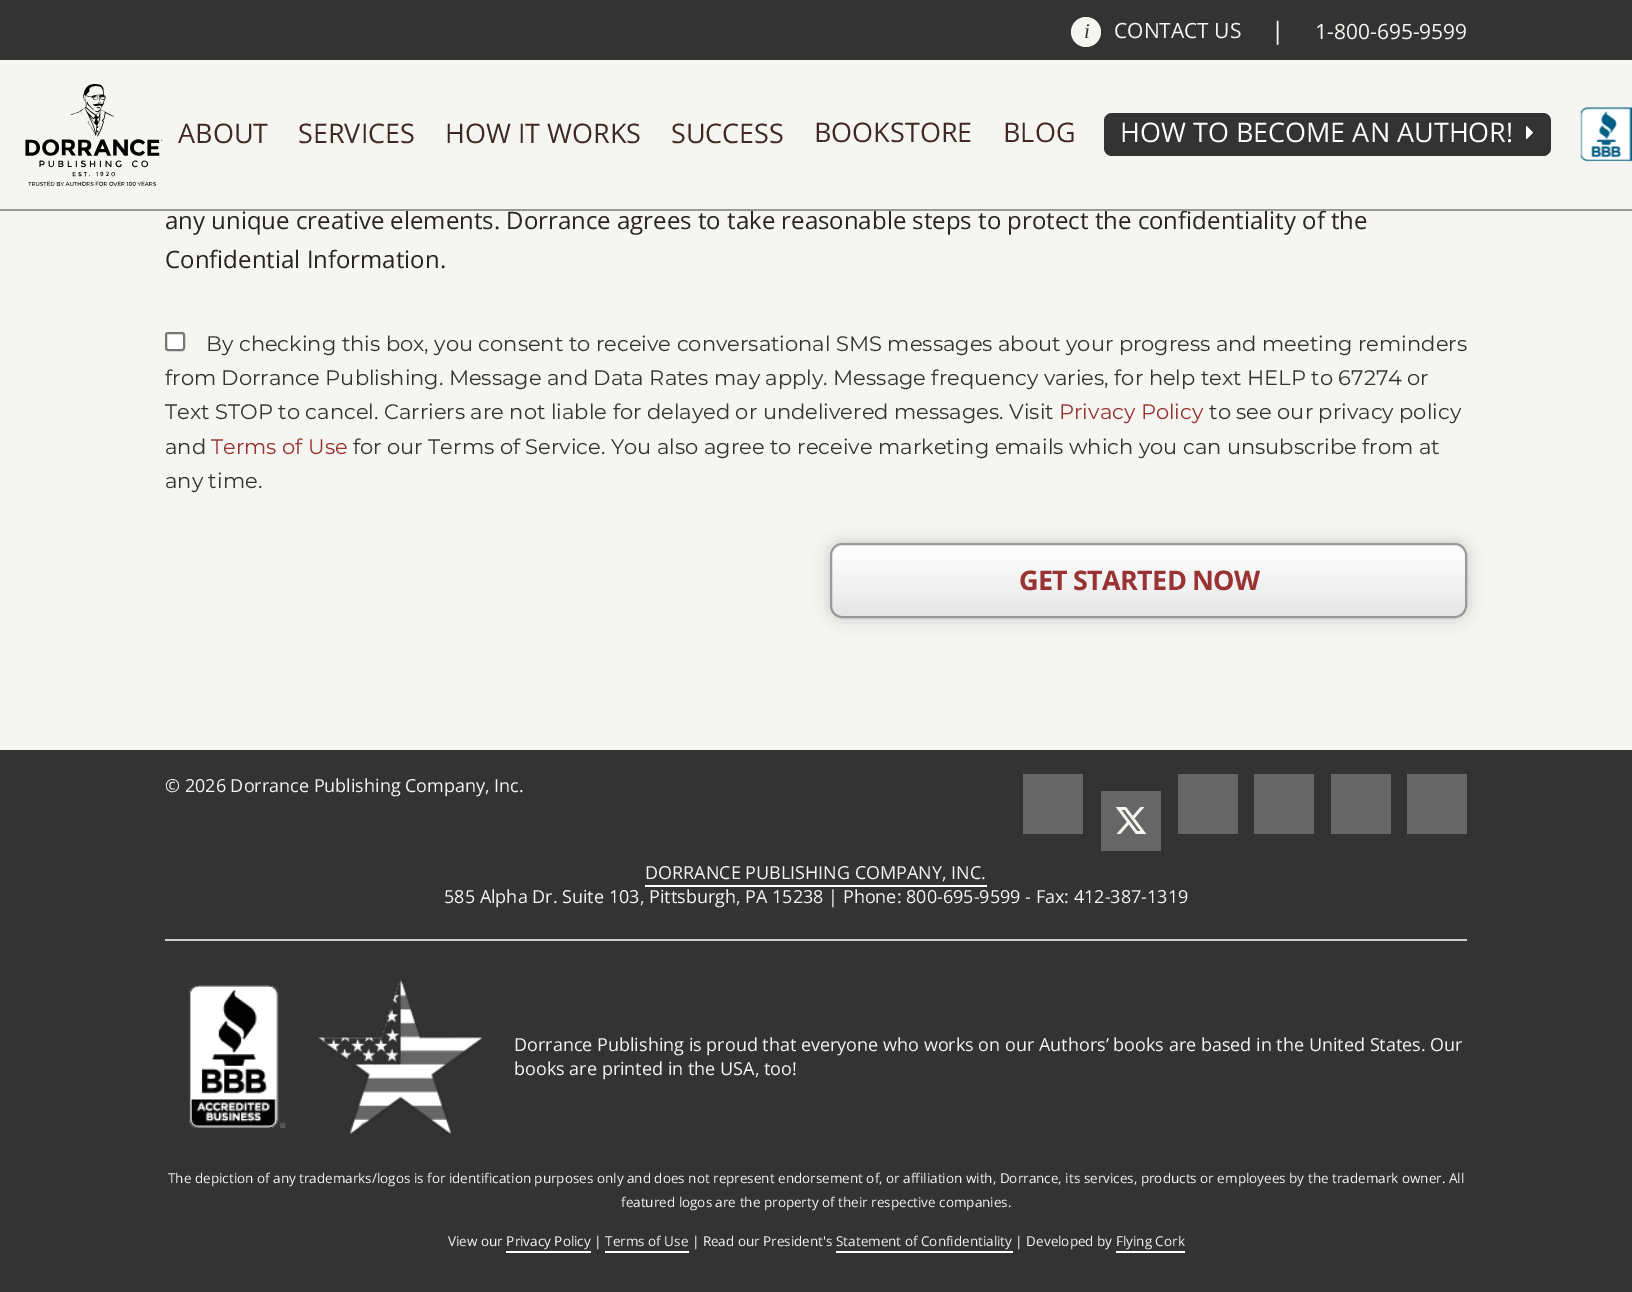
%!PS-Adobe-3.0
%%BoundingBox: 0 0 1632 1292
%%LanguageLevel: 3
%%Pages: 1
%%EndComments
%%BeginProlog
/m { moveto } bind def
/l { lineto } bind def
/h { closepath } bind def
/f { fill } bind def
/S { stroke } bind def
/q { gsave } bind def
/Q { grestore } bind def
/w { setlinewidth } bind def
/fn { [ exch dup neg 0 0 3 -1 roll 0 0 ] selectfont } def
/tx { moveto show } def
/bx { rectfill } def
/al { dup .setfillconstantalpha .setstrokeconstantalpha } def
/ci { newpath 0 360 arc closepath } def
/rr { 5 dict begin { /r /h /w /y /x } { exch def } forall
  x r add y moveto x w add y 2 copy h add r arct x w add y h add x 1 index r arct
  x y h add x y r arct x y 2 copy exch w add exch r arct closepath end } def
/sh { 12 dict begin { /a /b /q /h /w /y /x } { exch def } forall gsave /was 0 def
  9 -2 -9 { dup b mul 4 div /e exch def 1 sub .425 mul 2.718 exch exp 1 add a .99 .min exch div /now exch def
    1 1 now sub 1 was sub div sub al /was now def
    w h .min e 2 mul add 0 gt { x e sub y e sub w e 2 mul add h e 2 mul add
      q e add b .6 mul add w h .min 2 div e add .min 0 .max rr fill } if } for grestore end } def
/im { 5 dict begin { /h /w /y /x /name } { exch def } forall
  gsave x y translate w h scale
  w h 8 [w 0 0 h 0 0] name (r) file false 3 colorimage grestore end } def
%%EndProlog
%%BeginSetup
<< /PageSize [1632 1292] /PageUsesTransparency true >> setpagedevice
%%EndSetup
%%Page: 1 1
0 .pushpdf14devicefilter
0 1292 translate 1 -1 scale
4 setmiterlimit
0.961 0.965 0.945 setrgbcolor
0 0 1632 1292 bx
0.2 setgray
0 0 1632 60 bx
0.961 0.965 0.945 setrgbcolor
1086 32 15 ci f
/LiberationSerif-Italic 21 fn
0.2 setgray
(i) 1084 38 tx
/OpenSans-Regular 21 fn
0.961 0.965 0.945 setrgbcolor
(CONTACT US) 1114 38 tx
/OpenSans-Regular 24 fn
(|) 1271 39 tx
/OpenSans-Regular 21 fn
(1-800-695-9599) 1315 39 tx
/OpenSans-Regular 24 fn
0.161 0.141 0.133 setrgbcolor
(any unique creative elements. Dorrance agrees to take reasonable steps to protect the confidentiality of the) 165 229 tx
0.6 setgray
0 209 1632 2 bx
(image0.raw) 25 84 138 102 im
/OpenSans-Regular 27 fn
0.251 0.161 0.141 setrgbcolor
(ABOUT) 178 143 tx
(SERVICES) 298 143 tx
(HOW IT WORKS) 445 143 tx
(SUCCESS) 671 143 tx
(BOOKSTORE) 814 142 tx
(BLOG) 1003 142 tx
0.2 setgray
1104 113 447 43 8 rr f
(image1.raw) 1526 126 7 14 im
1 setgray
(HOW TO BECOME AN AUTHOR!) 1120 142 tx
(image2.raw) 1580 107 52 55 im
/OpenSans-Regular 24 fn
0.161 0.141 0.133 setrgbcolor
(Confidential Information.) 165 268 tx
1 setgray
166 333 18 17 2 rr q f Q
0.463 setgray
2 w
S
/Montserrat-Regular 21 fn
0.2 setgray
(By checking this box, you consent to receive conversational SMS messages about your progress and meeting reminders) 206 351 tx
(from Dorrance Publishing. Message and Data Rates may apply. Message frequency varies, for help text HELP to 67274 or) 165 385 tx
(Text STOP to cancel. Carriers are not liable for delayed or undelivered messages. Visit) 165 419 tx
0.6 0.2 0.2 setrgbcolor
(Privacy Policy) 1059 419 tx
0.2 setgray
(to see our privacy policy) 1209 419 tx
(and) 165 454 tx
0.6 0.2 0.2 setrgbcolor
(Terms of Use) 211 454 tx
0.2 setgray
(for our Terms of Service. You also agree to receive marketing emails which you can unsubscribe from at) 353 454 tx
(any time.) 165 488 tx
0.769 setgray
830 543 637 75 12 7.5 1 sh
q
830 543 637 75 12 rr clip newpath
q 830 545 m 1467 545 l 1467 617 l 830 617 l h clip newpath
<< /ShadingType 2 /ColorSpace /DeviceRGB /Coords [1148 545 1148 617] /Extend [true true] /Function << /FunctionType 3 /Domain [0 1] /Functions [<< /FunctionType 2 /Domain [0 1] /C0 [1 1 1] /C1 [0.969 0.969 0.969] /N 1 >> << /FunctionType 2 /Domain [0 1] /C0 [0.969 0.969 0.969] /C1 [0.937 0.937 0.937] /N 1 >> << /FunctionType 2 /Domain [0 1] /C0 [0.937 0.937 0.937] /C1 [0.898 0.898 0.898] /N 1 >>] /Bounds [0.33 0.66] /Encode [0 1 0 1 0 1] >> >> shfill Q
Q
0.6 setgray
831 544 635 73 11 rr S
/OpenSans-Bold 27 fn
0.6 0.2 0.2 setrgbcolor
1019 590 m -0.75 0 (GET STARTED NOW) ashow
0.2 setgray
0 750 1632 542 bx
/OpenSans-Regular 18 fn
0.961 0.965 0.945 setrgbcolor
(© 2026 Dorrance Publishing Company, Inc.) 165 792 tx
0.4 setgray
1023 774 60 60 bx
1101 791 60 60 bx
(image3.raw) 1115 807 32 27 im
1178 774 60 60 bx
1254 774 60 60 bx
1331 774 60 60 bx
1407 774 60 60 bx
0.961 0.965 0.945 setrgbcolor
(DORRANCE PUBLISHING COMPANY, INC.) 645 879 tx
1 setgray
645 885 342 2 bx
0.961 0.965 0.945 setrgbcolor
(585 Alpha Dr. Suite 103, Pittsburgh, PA 15238 | Phone: 800-695-9599 - Fax: 412-387-1319) 444 903 tx
0.8 setgray
165 939 1302 2 bx
(image4.raw) 189 985 97 143 im
(image5.raw) 318 979 165 155 im
0.961 0.965 0.945 setrgbcolor
(Dorrance Publishing is proud that everyone who works on our Authors’ books are based in the United States. Our) 514 1051 tx
(books are printed in the USA, too!) 514 1075 tx
/OpenSans-Regular 13.5 fn
(The depiction of any trademarks/logos is for identification purposes only and does not represent endorsement of, or affiliation with, Dorrance, its services, products or employees by the trademark owner. All) 168 1183 tx
(featured logos are the property of their respective companies.) 621 1207 tx
(View our Privacy Policy | Terms of Use | Read our President's Statement of Confidentiality | Developed by Flying Cork) 448 1246 tx
1 setgray
506 1251 85 2 bx
605 1251 84 2 bx
836 1251 177 2 bx
1116 1251 69 2 bx
.poppdf14devicefilter showpage
%%EOF
